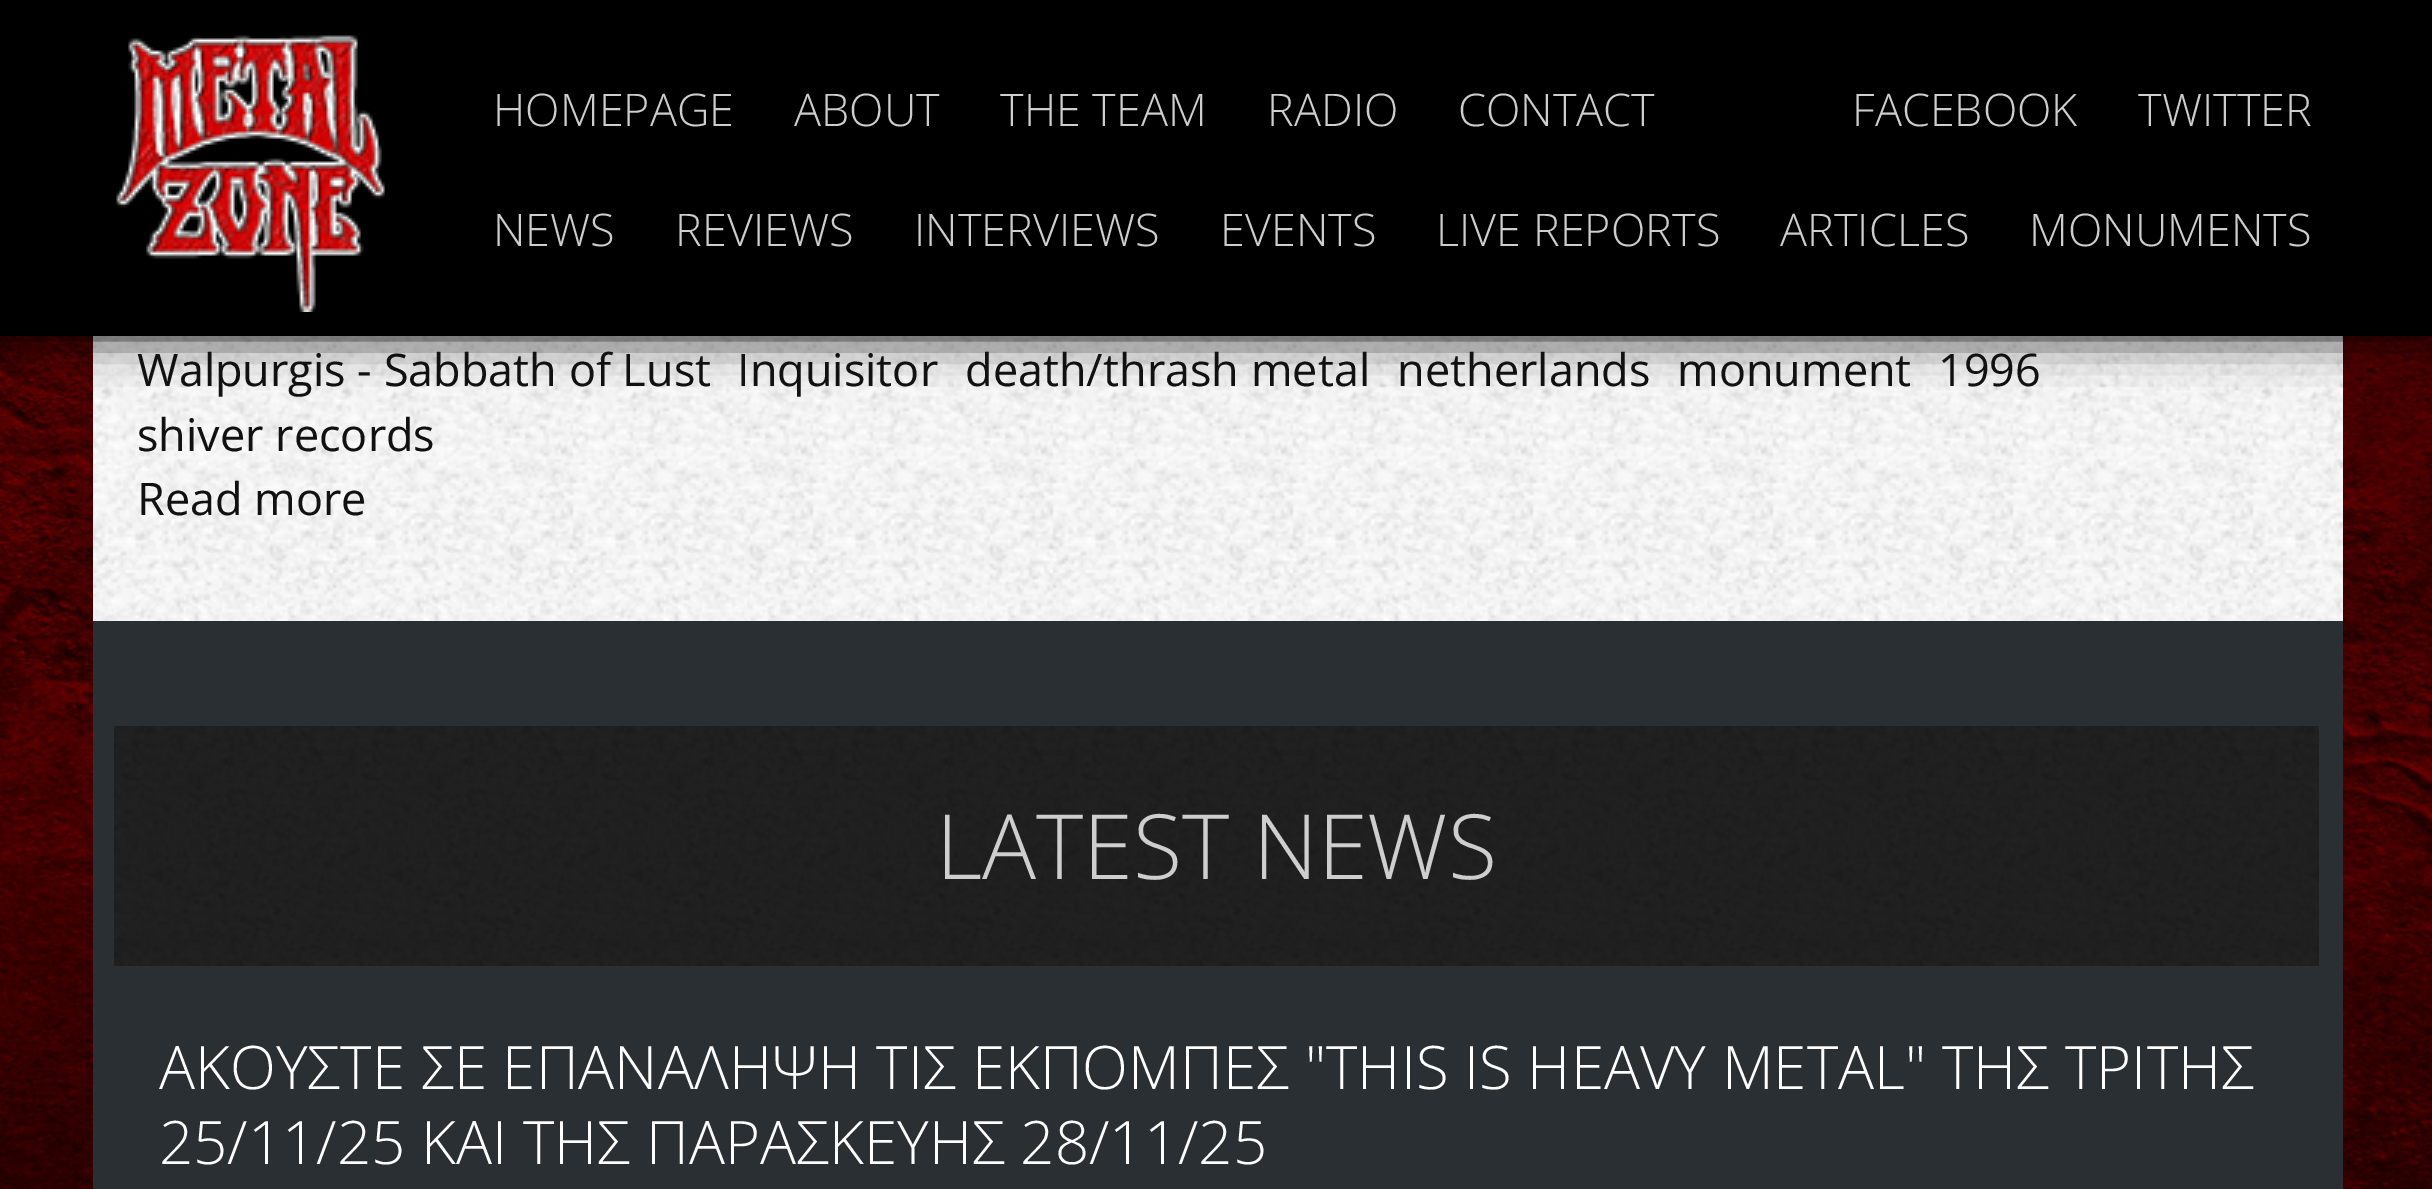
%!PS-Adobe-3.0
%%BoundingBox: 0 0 2432 1189
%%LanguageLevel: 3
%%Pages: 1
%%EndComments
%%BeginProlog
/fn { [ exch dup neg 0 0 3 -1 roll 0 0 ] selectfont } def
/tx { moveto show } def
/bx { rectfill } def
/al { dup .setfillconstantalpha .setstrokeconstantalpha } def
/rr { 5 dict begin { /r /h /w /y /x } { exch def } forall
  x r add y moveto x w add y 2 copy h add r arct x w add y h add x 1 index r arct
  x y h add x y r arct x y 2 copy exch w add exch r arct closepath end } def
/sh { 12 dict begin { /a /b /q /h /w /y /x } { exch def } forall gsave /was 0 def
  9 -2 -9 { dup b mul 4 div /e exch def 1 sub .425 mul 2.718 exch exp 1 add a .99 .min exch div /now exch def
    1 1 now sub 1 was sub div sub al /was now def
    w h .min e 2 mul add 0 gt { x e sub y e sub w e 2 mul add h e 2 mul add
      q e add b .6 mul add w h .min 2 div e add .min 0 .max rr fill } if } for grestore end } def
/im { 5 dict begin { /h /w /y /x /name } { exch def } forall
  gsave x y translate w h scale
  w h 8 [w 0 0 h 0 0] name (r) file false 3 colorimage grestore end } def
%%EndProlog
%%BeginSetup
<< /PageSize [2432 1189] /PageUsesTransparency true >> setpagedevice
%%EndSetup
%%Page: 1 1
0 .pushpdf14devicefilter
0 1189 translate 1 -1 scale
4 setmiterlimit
1 setgray
0 0 2432 1189 bx
(image0.raw) 0 336 2432 853 im
(image2.raw) 93 336 2250 285 im
0 setgray
0 0 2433 336 0 22.5 1 sh
0 0 2432 336 bx
(image1.raw) 116 34 269 278 im
/OpenSans-Light 45 fn
0.808 setgray
(HOMEPAGE) 493 126 tx
(ABOUT) 794 126 tx
(THE TEAM) 1000 126 tx
(RADIO) 1267 126 tx
(CONTACT) 1458 126 tx
(FACEBOOK) 1852 126 tx
(TWITTER) 2138 126 tx
(NEWS) 493 246 tx
(REVIEWS) 675 246 tx
(INTERVIEWS) 914 246 tx
(EVENTS) 1220 246 tx
(LIVE REPORTS) 1436 246 tx
(ARTICLES) 1780 246 tx
(MONUMENTS) 2029 246 tx
/OpenSans-Regular 45 fn
0.067 setgray
(Walpurgis - Sabbath of Lust) 137 386 tx
(Inquisitor) 737 386 tx
(death/thrash metal) 965 386 tx
(netherlands) 1397 386 tx
(monument) 1677 386 tx
(1996) 1938 386 tx
(shiver records) 137 451 tx
(Read more) 137 515 tx
0.161 0.184 0.2 setrgbcolor
93 621 2250 568 bx
(image3.raw) 114 726 2205 240 im
/OpenSans-Light 90 fn
0.808 setgray
(LATEST NEWS) 936 879 tx
/OpenSans-Light 60 fn
1 setgray
(ΑΚΟΥΣΤΕ ΣΕ ΕΠΑΝΑΛΗΨΗ ΤΙΣ ΕΚΠΟΜΠΕΣ "THIS IS HEAVY METAL" ΤΗΣ ΤΡΙΤΗΣ) 159 1089 tx
(25/11/25 ΚΑΙ ΤΗΣ ΠΑΡΑΣΚΕΥΗΣ 28/11/25) 159 1164 tx
.poppdf14devicefilter showpage
%%EOF
